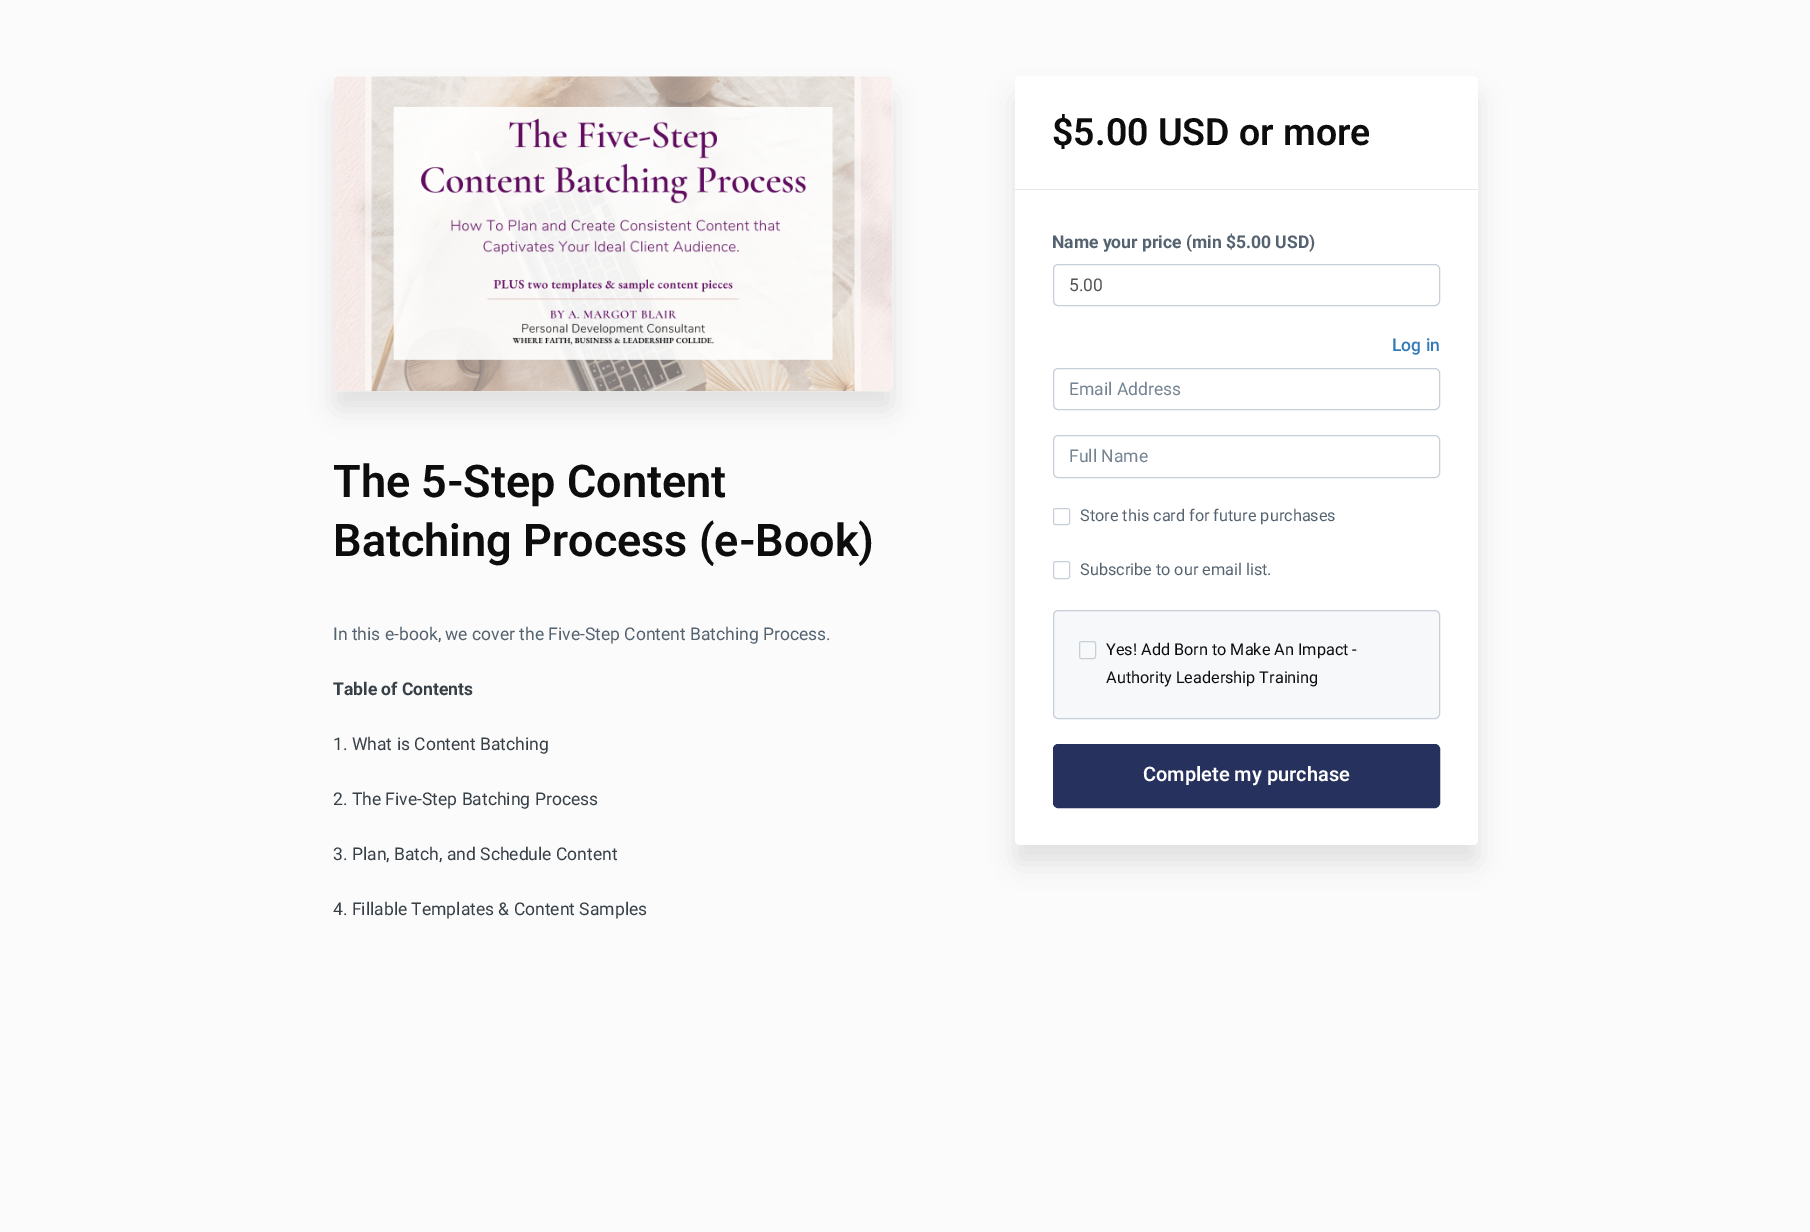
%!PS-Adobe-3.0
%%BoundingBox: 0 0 1810 1232
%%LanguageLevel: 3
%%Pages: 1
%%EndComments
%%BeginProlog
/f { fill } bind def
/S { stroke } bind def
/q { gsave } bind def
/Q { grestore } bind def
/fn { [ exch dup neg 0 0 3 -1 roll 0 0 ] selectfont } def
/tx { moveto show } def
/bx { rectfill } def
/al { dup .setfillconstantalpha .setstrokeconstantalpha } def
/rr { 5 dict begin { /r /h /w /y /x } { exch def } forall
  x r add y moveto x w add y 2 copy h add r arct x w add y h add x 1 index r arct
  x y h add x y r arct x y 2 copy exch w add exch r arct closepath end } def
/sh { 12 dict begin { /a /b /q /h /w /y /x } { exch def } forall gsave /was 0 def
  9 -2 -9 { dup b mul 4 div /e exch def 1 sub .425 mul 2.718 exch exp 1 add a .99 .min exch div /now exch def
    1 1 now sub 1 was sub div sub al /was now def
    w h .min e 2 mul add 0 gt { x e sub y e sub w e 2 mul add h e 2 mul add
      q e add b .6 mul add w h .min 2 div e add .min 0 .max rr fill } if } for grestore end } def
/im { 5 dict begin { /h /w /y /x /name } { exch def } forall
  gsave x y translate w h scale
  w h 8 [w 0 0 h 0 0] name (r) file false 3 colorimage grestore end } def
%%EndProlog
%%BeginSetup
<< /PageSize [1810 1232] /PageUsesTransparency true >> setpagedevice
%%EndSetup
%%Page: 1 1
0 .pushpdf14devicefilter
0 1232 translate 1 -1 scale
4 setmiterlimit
0.984 setgray
0 0 1810 1232 bx
0 setgray
334 95 559 315 5 12.5 0.1 sh
(image0.raw) 334 76 559 316 im
/Roboto-SemiBold 45 fn
0.051 setgray
(The 5-Step Content) 333 497 tx
(Batching Process \(e-Book\)) 333 556 tx
/Roboto-Regular 17.5 fn
0.333 0.388 0.439 setrgbcolor
(In this e-book, we cover the Five-Step Content Batching Process.) 333 640 tx
/Roboto-Bold 17.5 fn
0.216 0.247 0.278 setrgbcolor
(Table of Contents) 333 695 tx
/Roboto-Regular 17.5 fn
(1. What is Content Batching) 333 750 tx
(2. The Five-Step Batching Process) 333 805 tx
(3. Plan, Batch, and Schedule Content) 333 860 tx
(4. Fillable Templates & Content Samples) 333 915 tx
0 setgray
1015 95 463 769 5 12.5 0.1 sh
1 setgray
1015 76 463 769 5 rr f
0.898 0.914 0.914 setrgbcolor
1015 189 463 1 bx
/Roboto-SemiBold 37.5 fn
0.051 setgray
($5.00 USD or more) 1052 145 tx
/Roboto-Bold 17.5 fn
0.333 0.388 0.439 setrgbcolor
(Name your price \(min $5.00 USD\)) 1052 248 tx
0.78 0.812 0.847 setrgbcolor
1053.5 264.5 386 41 4.5 rr S
/Roboto-Regular 17.5 fn
0.333 setgray
(5.00) 1069 291 tx
/Roboto-Medium 17.5 fn
0.2 0.478 0.718 setrgbcolor
(Log in) 1392 351 tx
0.78 0.812 0.847 setrgbcolor
1053.5 368.5 386 41 4.5 rr S
/Roboto-Regular 17.5 fn
0.455 0.518 0.576 setrgbcolor
(Email Address) 1069 395 tx
0.78 0.812 0.847 setrgbcolor
1053.5 435.5 386 42 4.5 rr S
0.455 0.518 0.576 setrgbcolor
(Full Name) 1069 462 tx
0.78 0.812 0.847 setrgbcolor
1053.5 508.5 16 16 2 rr S
/Roboto-Regular 16.25 fn
0.333 0.388 0.439 setrgbcolor
(Store this card for future purchases) 1080 521 tx
0.78 0.812 0.847 setrgbcolor
1053.5 561.5 16 17 2 rr S
0.333 0.388 0.439 setrgbcolor
(Subscribe to our email list.) 1080 575 tx
0.965 0.973 0.976 setrgbcolor
1053.5 610.5 386 108 4.5 rr q f Q
0.78 0.812 0.847 setrgbcolor
S
1079.5 641.5 16 17 2 rr S
0.051 setgray
(Yes! Add Born to Make An Impact -) 1106 655 tx
(Authority Leadership Training) 1106 683 tx
0.149 0.192 0.369 setrgbcolor
1053.5 744.5 386 63 4.5 rr q f Q
S
/Roboto-SemiBold 20 fn
1 setgray
(Complete my purchase) 1143 781 tx
.poppdf14devicefilter showpage
%%EOF
